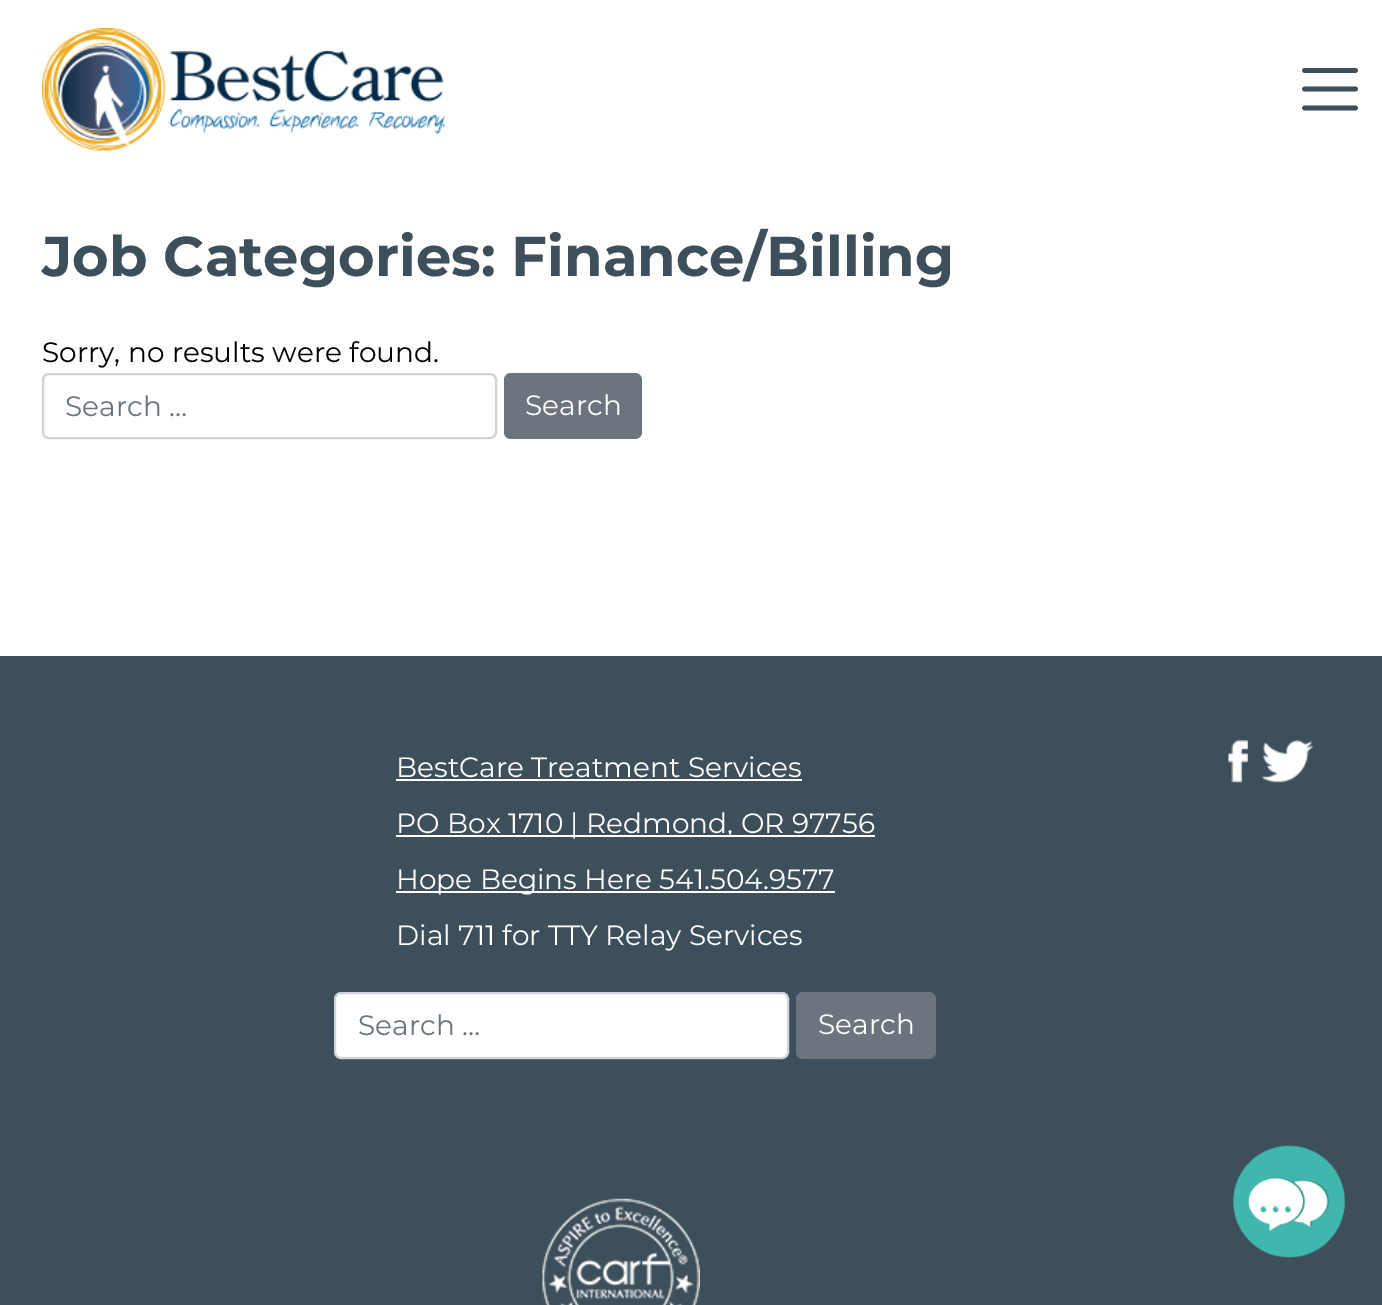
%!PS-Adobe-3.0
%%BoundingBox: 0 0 1382 1305
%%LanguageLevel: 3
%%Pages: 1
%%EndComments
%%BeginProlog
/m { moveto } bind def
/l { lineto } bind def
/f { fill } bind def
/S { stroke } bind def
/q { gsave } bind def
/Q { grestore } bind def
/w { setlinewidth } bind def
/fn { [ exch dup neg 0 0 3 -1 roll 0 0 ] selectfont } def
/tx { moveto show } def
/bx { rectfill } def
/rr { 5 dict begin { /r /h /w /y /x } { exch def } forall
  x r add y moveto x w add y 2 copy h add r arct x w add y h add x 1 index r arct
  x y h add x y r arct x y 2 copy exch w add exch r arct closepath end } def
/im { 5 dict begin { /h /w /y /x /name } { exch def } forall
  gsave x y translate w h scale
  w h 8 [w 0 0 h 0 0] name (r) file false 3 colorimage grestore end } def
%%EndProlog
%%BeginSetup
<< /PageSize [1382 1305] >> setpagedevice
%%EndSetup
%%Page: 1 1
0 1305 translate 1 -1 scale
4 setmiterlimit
1 setgray
0 0 1382 1305 bx
(image0.raw) 42 28 403 123 im
0.239 0.31 0.353 setrgbcolor
4.7 w
1 setlinecap
1304.5 70.5 m 1355.5 70.5 l 1304.5 89 m 1355.5 89 l 1304.5 108 m 1355.5 108 l S
/Montserrat-Bold 56 fn
(Job Categories: Finance/Billing) 42 276 tx
/Montserrat-Regular 28 fn
0 setgray
(Sorry, no results were found.) 42 362 tx
0.808 0.831 0.855 setrgbcolor
2 w
0 setlinecap
43 374 453 64 6 rr S
0.424 0.459 0.49 setrgbcolor
(Search …) 65 416 tx
504 373 138 66 7 rr f
1 setgray
(Search) 525 415 tx
0.239 0.31 0.353 setrgbcolor
0 656 1382 649 bx
1 setgray
(BestCare Treatment Services) 396 777 tx
396 779 406 2 bx
396 835 479 2 bx
(PO Box 1710 | Redmond, OR 97756) 396 833 tx
396 891 439 2 bx
(Hope Begins Here 541.504.9577) 396 889 tx
(Dial 711 for TTY Relay Services) 396 945 tx
335 993 453 65 6 rr q f Q
0.808 0.831 0.855 setrgbcolor
S
0.424 0.459 0.49 setrgbcolor
(Search …) 358 1035 tx
796 992 140 67 7 rr f
1 setgray
(Search) 818 1034 tx
(image1.raw) 542 1198 158 107 im
(image2.raw) 1228 740 20 43 im
(image3.raw) 1261 740 52 43 im
(image4.raw) 1233 1145 112 113 im
showpage
%%EOF
